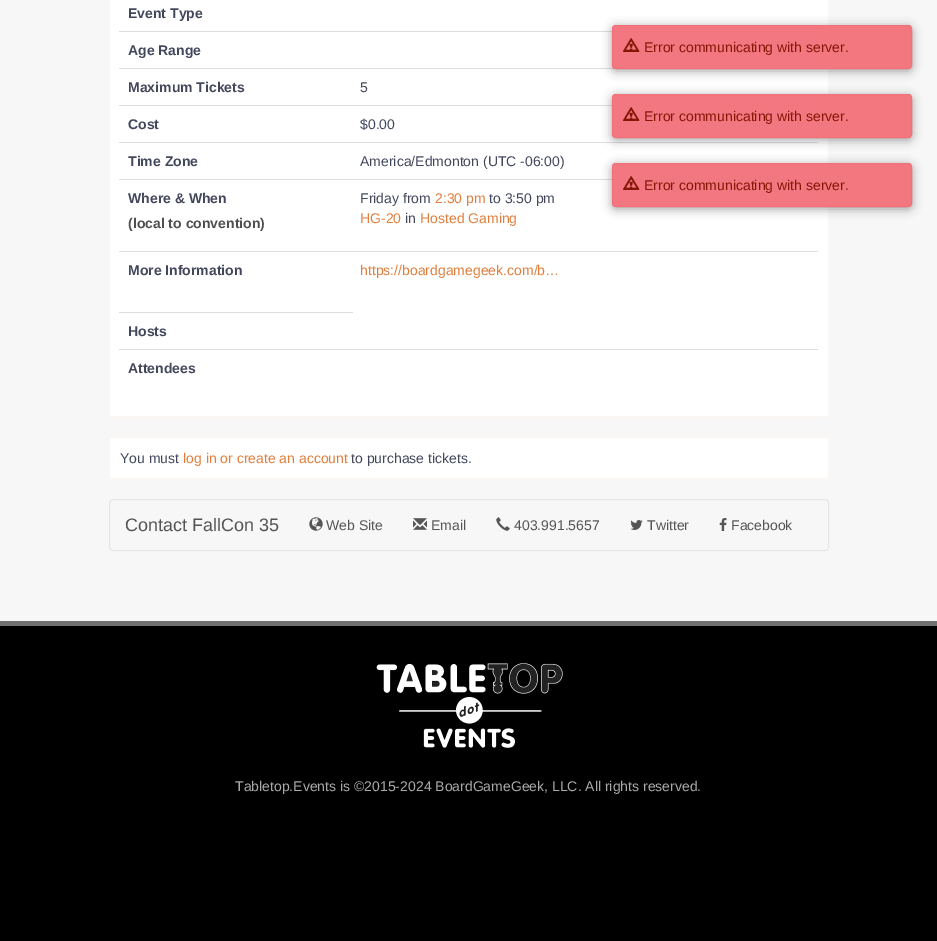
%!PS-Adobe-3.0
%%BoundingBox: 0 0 937 941
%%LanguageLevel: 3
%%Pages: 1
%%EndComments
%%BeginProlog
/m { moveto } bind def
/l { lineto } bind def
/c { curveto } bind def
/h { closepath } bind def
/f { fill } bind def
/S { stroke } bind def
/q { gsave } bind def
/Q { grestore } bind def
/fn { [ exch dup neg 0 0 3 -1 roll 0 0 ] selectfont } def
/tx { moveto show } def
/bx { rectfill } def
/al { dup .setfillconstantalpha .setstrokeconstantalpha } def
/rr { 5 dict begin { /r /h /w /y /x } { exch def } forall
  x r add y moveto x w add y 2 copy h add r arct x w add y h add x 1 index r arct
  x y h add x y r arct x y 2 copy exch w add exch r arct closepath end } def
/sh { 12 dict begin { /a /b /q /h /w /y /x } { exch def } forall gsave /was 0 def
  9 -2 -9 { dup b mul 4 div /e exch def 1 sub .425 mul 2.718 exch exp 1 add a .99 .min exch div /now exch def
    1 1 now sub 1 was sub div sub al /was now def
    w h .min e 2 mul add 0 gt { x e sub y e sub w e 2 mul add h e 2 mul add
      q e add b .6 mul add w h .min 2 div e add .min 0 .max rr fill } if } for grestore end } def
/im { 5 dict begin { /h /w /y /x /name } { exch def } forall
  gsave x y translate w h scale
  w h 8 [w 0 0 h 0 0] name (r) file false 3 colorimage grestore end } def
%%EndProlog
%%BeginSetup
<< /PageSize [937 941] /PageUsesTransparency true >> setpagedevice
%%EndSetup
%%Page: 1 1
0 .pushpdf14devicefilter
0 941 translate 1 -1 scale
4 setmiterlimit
0.969 setgray
0 0 937 941 bx
1 setgray
109.5 -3.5 719 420 2.5 rr q f Q
0.988 0.969 0.949 setrgbcolor
S
/LiberationSans-Bold 14 fn
0.263 0.278 0.361 setrgbcolor
(Event Type) 128 18 tx
0.867 setgray
119 31 699 1 bx
0.263 0.278 0.361 setrgbcolor
(Age Range) 128 55 tx
(Maximum Tickets) 128 92 tx
0.867 setgray
119 68 699 1 bx
/LiberationSans-Regular 14 fn
0.263 0.278 0.361 setrgbcolor
(5) 360 92 tx
/LiberationSans-Bold 14 fn
(Cost) 128 129 tx
0.867 setgray
119 105 699 1 bx
/LiberationSans-Regular 14 fn
0.263 0.278 0.361 setrgbcolor
($0.00) 360 129 tx
/LiberationSans-Bold 14 fn
(Time Zone) 128 166 tx
0.867 setgray
119 142 699 1 bx
/LiberationSans-Regular 14 fn
0.263 0.278 0.361 setrgbcolor
(America/Edmonton \(UTC -06:00\)) 360 166 tx
/LiberationSans-Bold 14 fn
(Where & When) 128 203 tx
0.31 setgray
(\(local to convention\)) 128 228 tx
0.867 setgray
119 179 699 1 bx
/LiberationSans-Regular 14 fn
0.263 0.278 0.361 setrgbcolor
(Friday from) 360 203 tx
0.878 0.494 0.235 setrgbcolor
(2:30 pm) 435 203 tx
0.263 0.278 0.361 setrgbcolor
(to 3:50 pm) 489 203 tx
0.878 0.494 0.235 setrgbcolor
(HG-20) 360 223 tx
0.263 0.278 0.361 setrgbcolor
(in) 405 223 tx
0.878 0.494 0.235 setrgbcolor
(Hosted Gaming) 420 223 tx
/LiberationSans-Bold 14 fn
0.263 0.278 0.361 setrgbcolor
(More Information) 128 275 tx
0.867 setgray
119 251 699 1 bx
/LiberationSans-Regular 14 fn
0.878 0.494 0.235 setrgbcolor
(https://boardgamegeek.com/b…) 360 275 tx
0.867 setgray
119 312 234 1 bx
/LiberationSans-Bold 14 fn
0.263 0.278 0.361 setrgbcolor
(Hosts) 128 336 tx
0.867 setgray
119 349 699 1 bx
0.263 0.278 0.361 setrgbcolor
(Attendees) 128 373 tx
1 setgray
109.5 437.5 719 41 2.5 rr q f Q
0.988 0.969 0.949 setrgbcolor
S
/LiberationSans-Regular 14 fn
0.263 0.278 0.361 setrgbcolor
(You must) 120 463 tx
0.878 0.494 0.235 setrgbcolor
(log in or create an account) 183 463 tx
0.263 0.278 0.361 setrgbcolor
(to purchase tickets.) 351 463 tx
0.906 setgray
109.5 499.5 719 51 3.5 rr S
/LiberationSans-Regular 18 fn
0.333 setgray
(Contact FallCon 35) 125 531 tx
(image0.raw) 309 517 14 14 im
/LiberationSans-Regular 14 fn
(Web Site) 326 530 tx
(image1.raw) 413 518 14 12 im
(Email) 431 530 tx
(image2.raw) 496 517 14 14 im
(403.991.5657) 514 530 tx
(image3.raw) 630 520 13 10 im
(Twitter) 647 530 tx
(image4.raw) 719 518 8 13 im
(Facebook) 731 530 tx
q
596 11 m 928 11 l 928 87 l 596 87 l h 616 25 m 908 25 l 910 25 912 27 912 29 c 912 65 l 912 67 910 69 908 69 c 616 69 l 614 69 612 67 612 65 c 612 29 l 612 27 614 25 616 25 c h eoclip newpath
0.196 setgray
612 27 300 44 4 5 0.47 sh
Q
0.95 al
0.949 0.439 0.475 setrgbcolor
612 25 300 44 4 rr f
612.5 25.5 299 43 3.5 rr S
1 al
(image5.raw) 623 38 17 14 im
0.525 0.086 0.024 setrgbcolor
(Error communicating with server.) 644 52 tx
q
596 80 m 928 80 l 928 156 l 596 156 l h 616 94 m 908 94 l 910 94 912 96 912 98 c 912 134 l 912 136 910 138 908 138 c 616 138 l 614 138 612 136 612 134 c 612 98 l 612 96 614 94 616 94 c h eoclip newpath
0.196 setgray
612 96 300 44 4 5 0.47 sh
Q
0.95 al
0.949 0.439 0.475 setrgbcolor
612 94 300 44 4 rr f
612.5 94.5 299 43 3.5 rr S
1 al
(image5.raw) 623 107 17 14 im
0.525 0.086 0.024 setrgbcolor
(Error communicating with server.) 644 121 tx
q
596 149 m 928 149 l 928 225 l 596 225 l h 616 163 m 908 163 l 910 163 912 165 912 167 c 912 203 l 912 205 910 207 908 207 c 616 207 l 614 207 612 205 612 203 c 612 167 l 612 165 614 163 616 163 c h eoclip newpath
0.196 setgray
612 165 300 44 4 5 0.47 sh
Q
0.95 al
0.949 0.439 0.475 setrgbcolor
612 163 300 44 4 rr f
612.5 163.5 299 43 3.5 rr S
1 al
(image6.raw) 623 176 17 14 im
0.525 0.086 0.024 setrgbcolor
(Error communicating with server.) 644 190 tx
0 setgray
0 626 937 315 bx
0.443 setgray
0 621 937 5 bx
(image7.raw) 376 663 187 85 im
0.667 setgray
(Tabletop.Events is ©2015-2024 BoardGameGeek, LLC. All rights reserved.) 235 791 tx
.poppdf14devicefilter showpage
%%EOF
